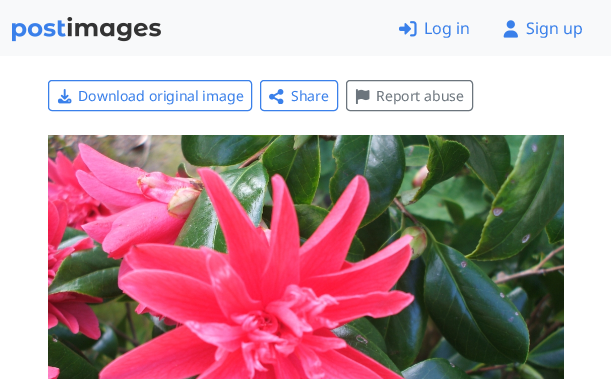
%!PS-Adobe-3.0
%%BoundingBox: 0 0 611 379
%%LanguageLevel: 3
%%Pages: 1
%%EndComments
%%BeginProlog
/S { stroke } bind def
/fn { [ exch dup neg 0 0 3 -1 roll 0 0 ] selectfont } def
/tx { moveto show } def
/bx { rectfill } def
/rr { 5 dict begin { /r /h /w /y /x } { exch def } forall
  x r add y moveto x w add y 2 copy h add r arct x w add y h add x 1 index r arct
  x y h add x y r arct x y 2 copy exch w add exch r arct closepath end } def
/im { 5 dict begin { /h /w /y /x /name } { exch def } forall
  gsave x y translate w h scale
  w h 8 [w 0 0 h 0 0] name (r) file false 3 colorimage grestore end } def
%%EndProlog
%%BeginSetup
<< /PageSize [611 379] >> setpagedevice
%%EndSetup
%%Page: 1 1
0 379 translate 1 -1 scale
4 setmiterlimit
1 setgray
0 0 611 379 bx
0.973 0.976 0.98 setrgbcolor
0 0 611 56 bx
(image0.raw) 12 17 149 25 im
(image1.raw) 399 21 18 16 im
/NotoSans-Regular 16 fn
0.227 0.502 0.918 setrgbcolor
(Log in) 424 34 tx
(image2.raw) 503 20 15 18 im
(Sign up) 526 34 tx
48.5 80.5 203 30 3.5 rr S
(image3.raw) 57 89 15 15 im
/NotoSans-Regular 14 fn
(Download original image) 78 101 tx
260.5 80.5 77 30 3.5 rr S
(image4.raw) 269 89 15 15 im
(Share) 291 101 tx
0.424 0.459 0.49 setrgbcolor
346.5 80.5 126 30 3.5 rr S
(image5.raw) 355 89 15 15 im
(Report abuse) 376 101 tx
(image6.raw) 48 135 516 244 im
showpage
%%EOF
